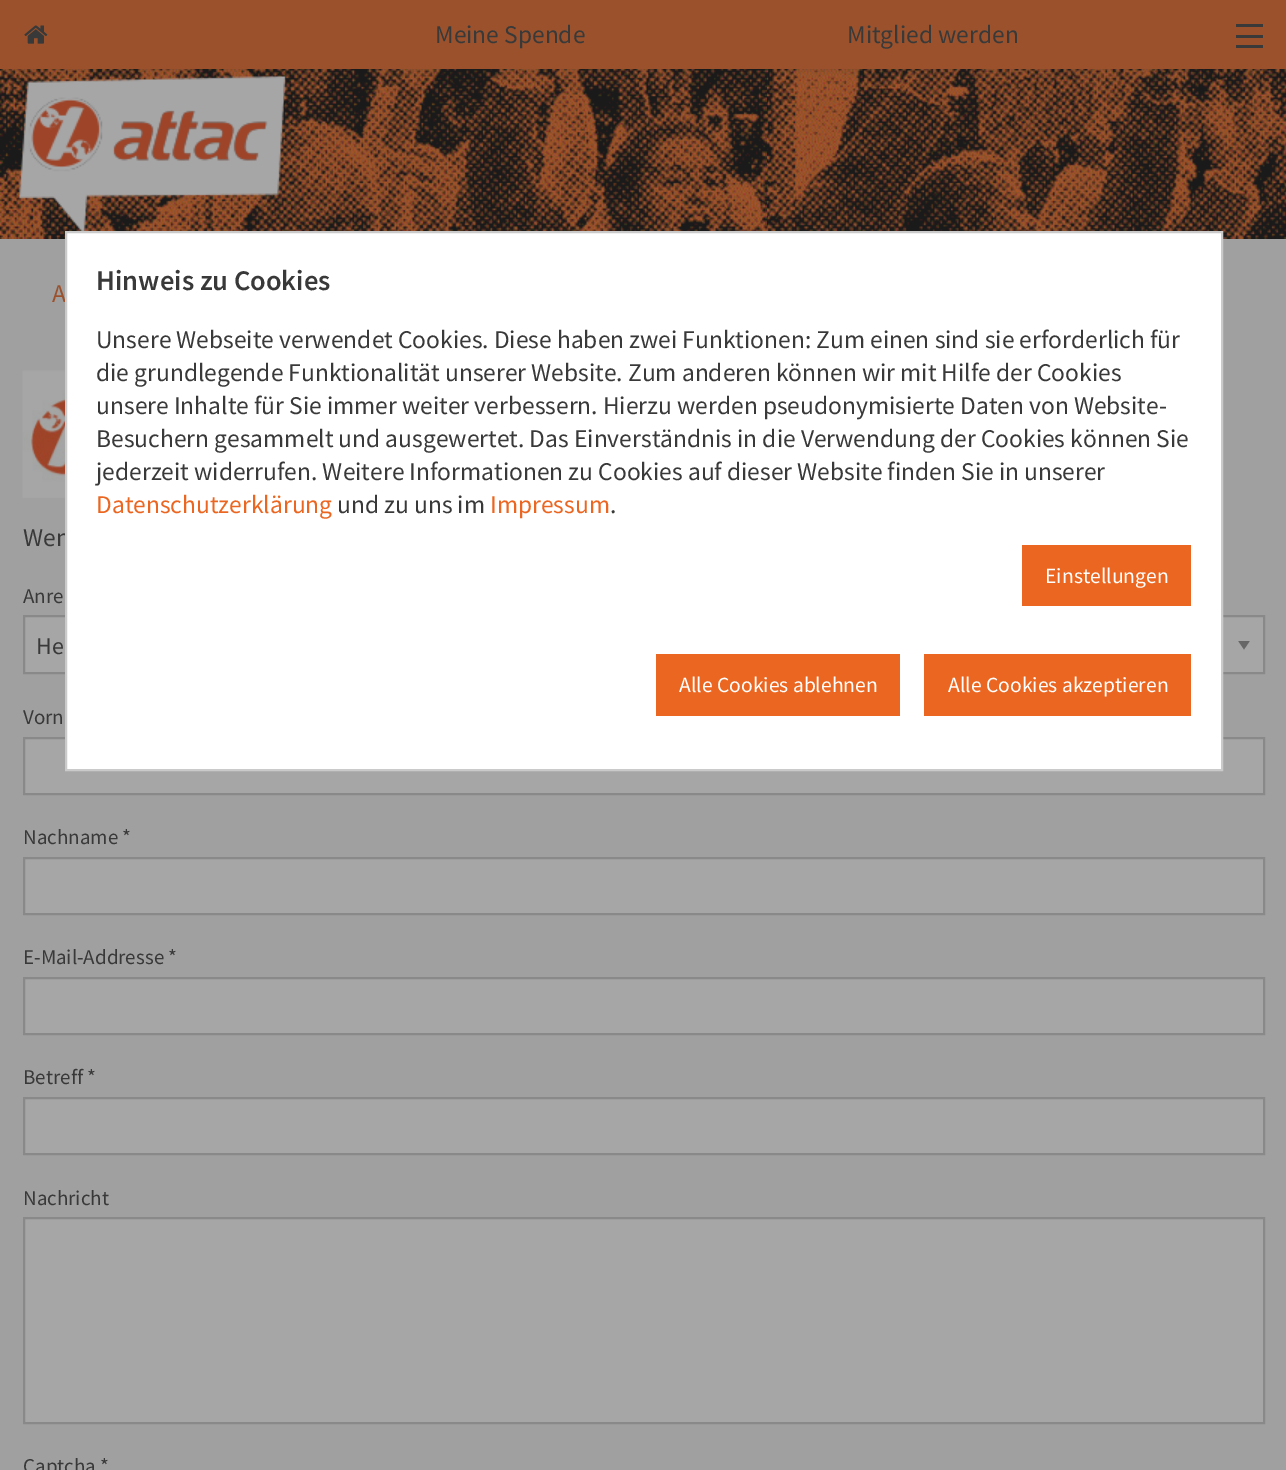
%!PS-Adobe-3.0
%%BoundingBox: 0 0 1286 1470
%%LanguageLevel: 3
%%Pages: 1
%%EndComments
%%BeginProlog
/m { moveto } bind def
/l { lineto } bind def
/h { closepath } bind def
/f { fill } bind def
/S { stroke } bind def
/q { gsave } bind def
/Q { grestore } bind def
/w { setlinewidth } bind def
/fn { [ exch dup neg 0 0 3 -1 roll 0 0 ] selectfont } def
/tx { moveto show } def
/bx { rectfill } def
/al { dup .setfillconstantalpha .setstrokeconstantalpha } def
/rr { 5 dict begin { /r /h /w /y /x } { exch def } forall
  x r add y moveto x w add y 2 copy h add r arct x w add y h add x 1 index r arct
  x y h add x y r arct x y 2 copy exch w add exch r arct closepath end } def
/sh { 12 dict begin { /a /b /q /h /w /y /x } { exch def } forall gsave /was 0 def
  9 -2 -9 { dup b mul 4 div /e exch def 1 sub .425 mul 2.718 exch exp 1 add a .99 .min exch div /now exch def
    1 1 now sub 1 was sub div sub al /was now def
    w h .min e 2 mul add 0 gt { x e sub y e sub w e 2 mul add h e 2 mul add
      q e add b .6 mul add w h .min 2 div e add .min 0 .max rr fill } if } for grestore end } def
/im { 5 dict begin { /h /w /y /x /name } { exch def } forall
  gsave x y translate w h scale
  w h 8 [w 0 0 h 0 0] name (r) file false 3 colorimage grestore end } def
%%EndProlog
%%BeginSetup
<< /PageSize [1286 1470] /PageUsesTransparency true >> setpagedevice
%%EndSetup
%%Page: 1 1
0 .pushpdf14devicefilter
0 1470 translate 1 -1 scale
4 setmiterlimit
0.627 setgray
0 0 1286 1470 bx
(image1.raw) 0 69 1286 170 im
(image2.raw) 19 76 267 155 im
0.102 setgray
0 0 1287 69 0 4 0.2 sh
0.608 0.322 0.173 setrgbcolor
0 0 1286 69 bx
(image0.raw) 24 25 24 19 im
/SourceSansPro-Regular 25.5 fn
0.224 setgray
(Meine Spende) 435 43 tx
(Mitglied werden) 847 43 tx
1236 45 27 3 bx
1236 35 27 3 bx
1236 24 27 3 bx
0.608 0.322 0.173 setrgbcolor
(A) 52 302 tx
(image3.raw) 22 370 43 128 im
0.224 setgray
(Wen) 23 546 tx
/SourceSansPro-Regular 21 fn
(Anre) 23 603 tx
0.651 setgray
25 617 1238 55 bx
q
1238 641 13 9 rectclip
0.4 setgray
1238 640.5 m 1250 640.5 l 1244 649.5 l h f
Q
0.537 setgray
2 w
24 616 1240 57 rectstroke
/SourceSansPro-Regular 24 fn
0.224 setgray
(He) 36 654 tx
/SourceSansPro-Regular 21 fn
(Vorn) 23 724 tx
0.651 setgray
24 738 m 1264 738 l 1264 794 l 24 794 l h q f Q
0.537 setgray
S
0.224 setgray
(Nachname *) 23 844 tx
0.651 setgray
24 858 m 1264 858 l 1264 914 l 24 914 l h q f Q
0.537 setgray
S
0.224 setgray
(E-Mail-Addresse *) 23 964 tx
0.651 setgray
24 978 m 1264 978 l 1264 1034 l 24 1034 l h q f Q
0.537 setgray
S
0.224 setgray
(Betreff *) 23 1084 tx
0.651 setgray
24 1098 m 1264 1098 l 1264 1154 l 24 1154 l h q f Q
0.537 setgray
S
0.224 setgray
(Nachricht) 23 1205 tx
0.651 setgray
24 1218 m 1264 1218 l 1264 1423 l 24 1423 l h q f Q
0.537 setgray
S
0.224 setgray
(Captcha *) 23 1473 tx
1 setgray
66 232 m 1222 232 l 1222 770 l 66 770 l h q f Q
0.792 setgray
S
/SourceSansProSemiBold-SemiBold 28.5 fn
0.224 setgray
(Hinweis zu Cookies) 96 290 tx
/SourceSansPro-Regular 25.5 fn
(Unsere Webseite verwendet Cookies. Diese haben zwei Funktionen: Zum einen sind sie erforderlich für) 96 348 tx
(die grundlegende Funktionalität unserer Website. Zum anderen können wir mit Hilfe der Cookies) 96 381 tx
(unsere Inhalte für Sie immer weiter verbessern. Hierzu werden pseudonymisierte Daten von Website-) 96 414 tx
(Besuchern gesammelt und ausgewertet. Das Einverständnis in die Verwendung der Cookies können Sie) 96 447 tx
(jederzeit widerrufen. Weitere Informationen zu Cookies auf dieser Website finden Sie in unserer) 96 480 tx
0.922 0.404 0.129 setrgbcolor
(Datenschutzerklärung) 96 513 tx
0.224 setgray
(und zu uns im) 337 513 tx
0.922 0.404 0.129 setrgbcolor
(Impressum) 490 513 tx
0.224 setgray
(.) 610 513 tx
0.922 0.404 0.129 setrgbcolor
1022 545 169 61 bx
/SourceSansPro-Regular 21.6 fn
1 setgray
(Einstellungen) 1045 583 tx
0.922 0.404 0.129 setrgbcolor
656 654 244 62 bx
1 setgray
(Alle Cookies ablehnen) 679 692 tx
0.922 0.404 0.129 setrgbcolor
924 654 267 62 bx
1 setgray
(Alle Cookies akzeptieren) 948 692 tx
.poppdf14devicefilter showpage
%%EOF
